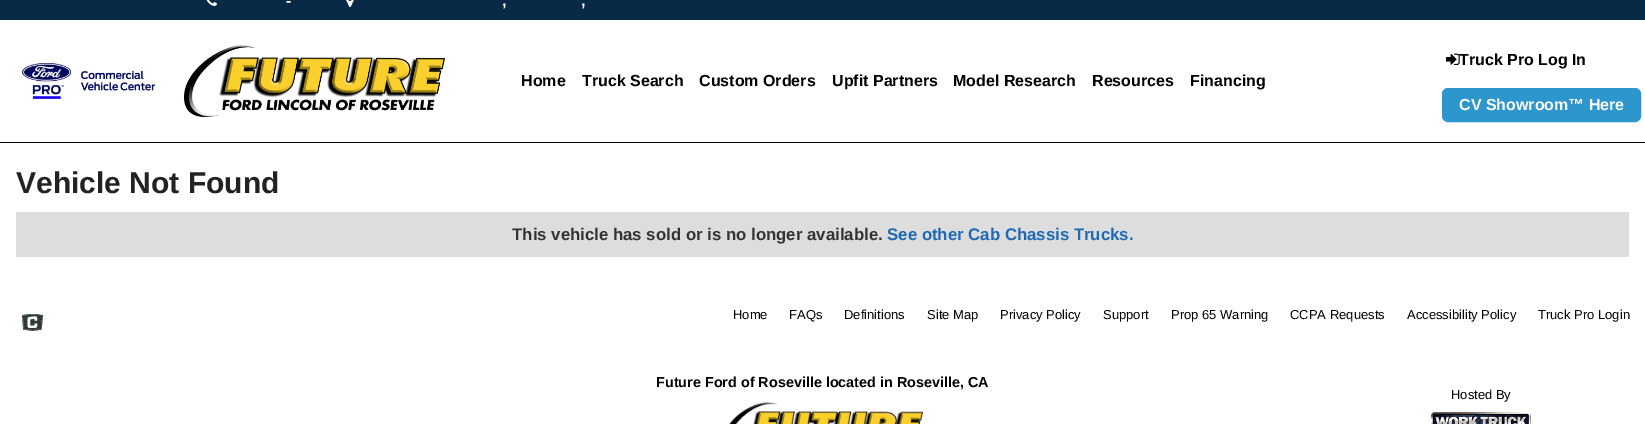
%!PS-Adobe-3.0
%%BoundingBox: 0 0 1645 424
%%LanguageLevel: 3
%%Pages: 1
%%EndComments
%%BeginProlog
/f { fill } bind def
/S { stroke } bind def
/q { gsave } bind def
/Q { grestore } bind def
/fn { [ exch dup neg 0 0 3 -1 roll 0 0 ] selectfont } def
/tx { moveto show } def
/bx { rectfill } def
/rr { 5 dict begin { /r /h /w /y /x } { exch def } forall
  x r add y moveto x w add y 2 copy h add r arct x w add y h add x 1 index r arct
  x y h add x y r arct x y 2 copy exch w add exch r arct closepath end } def
/im { 5 dict begin { /h /w /y /x /name } { exch def } forall
  gsave x y translate w h scale
  w h 8 [w 0 0 h 0 0] name (r) file false 3 colorimage grestore end } def
%%EndProlog
%%BeginSetup
<< /PageSize [1645 424] >> setpagedevice
%%EndSetup
%%Page: 1 1
0 424 translate 1 -1 scale
4 setmiterlimit
1 setgray
0 0 1645 424 bx
0 setgray
0 142 1645 1 bx
0.035 0.165 0.275 setrgbcolor
0 0 1645 20 bx
(image0.raw) 206 0 11 6 im
/LiberationSans-Bold 16 fn
1 setgray
(-) 286 6 tx
(image1.raw) 346 0 8 7 im
(,) 502 6 tx
(,) 581 6 tx
(image2.raw) 22 63 133 37 im
(image3.raw) 184 45 261 72 im
0 setgray
(Home) 521 86 tx
(Truck Search) 582 86 tx
(Custom Orders) 699 86 tx
(Upfit Partners) 832 86 tx
(Model Research) 953 86 tx
(Resources) 1092 86 tx
(Financing) 1190 86 tx
(image4.raw) 1446 53 14 12 im
(Truck Pro Log In) 1459 65 tx
0.176 0.588 0.804 setrgbcolor
1442.5 88.5 198 33 5.5 rr q f Q
S
1 setgray
(CV Showroom™ Here) 1459 110 tx
/LiberationSans-Bold 30 fn
0.133 setgray
(Vehicle Not Found) 16 193 tx
0.867 setgray
16 212 1613 45 bx
/LiberationSans-Bold 16.8 fn
0.2 setgray
(This vehicle has sold or is no longer available.) 512 240 tx
0.114 0.412 0.706 setrgbcolor
(See other Cab Chassis Trucks.) 887 240 tx
(image5.raw) 22 314 21 17 im
/LiberationSans-Regular 13 fn
0 setgray
(Home) 733 319 tx
(FAQs) 789 319 tx
(Definitions) 844 319 tx
(Site Map) 927 319 tx
(Privacy Policy) 1000 319 tx
(Support) 1103 319 tx
(Prop 65 Warning) 1171 319 tx
(CCPA Requests) 1290 319 tx
(Accessibility Policy) 1407 319 tx
(Truck Pro Login) 1538 319 tx
/LiberationSans-Bold 14.4 fn
(Future Ford of Roseville located in Roseville, CA) 656 387 tx
(image6.raw) 729 402 194 22 im
/LiberationSans-Regular 13 fn
(Hosted By) 1451 399 tx
(image7.raw) 1431 412 100 12 im
showpage
%%EOF
